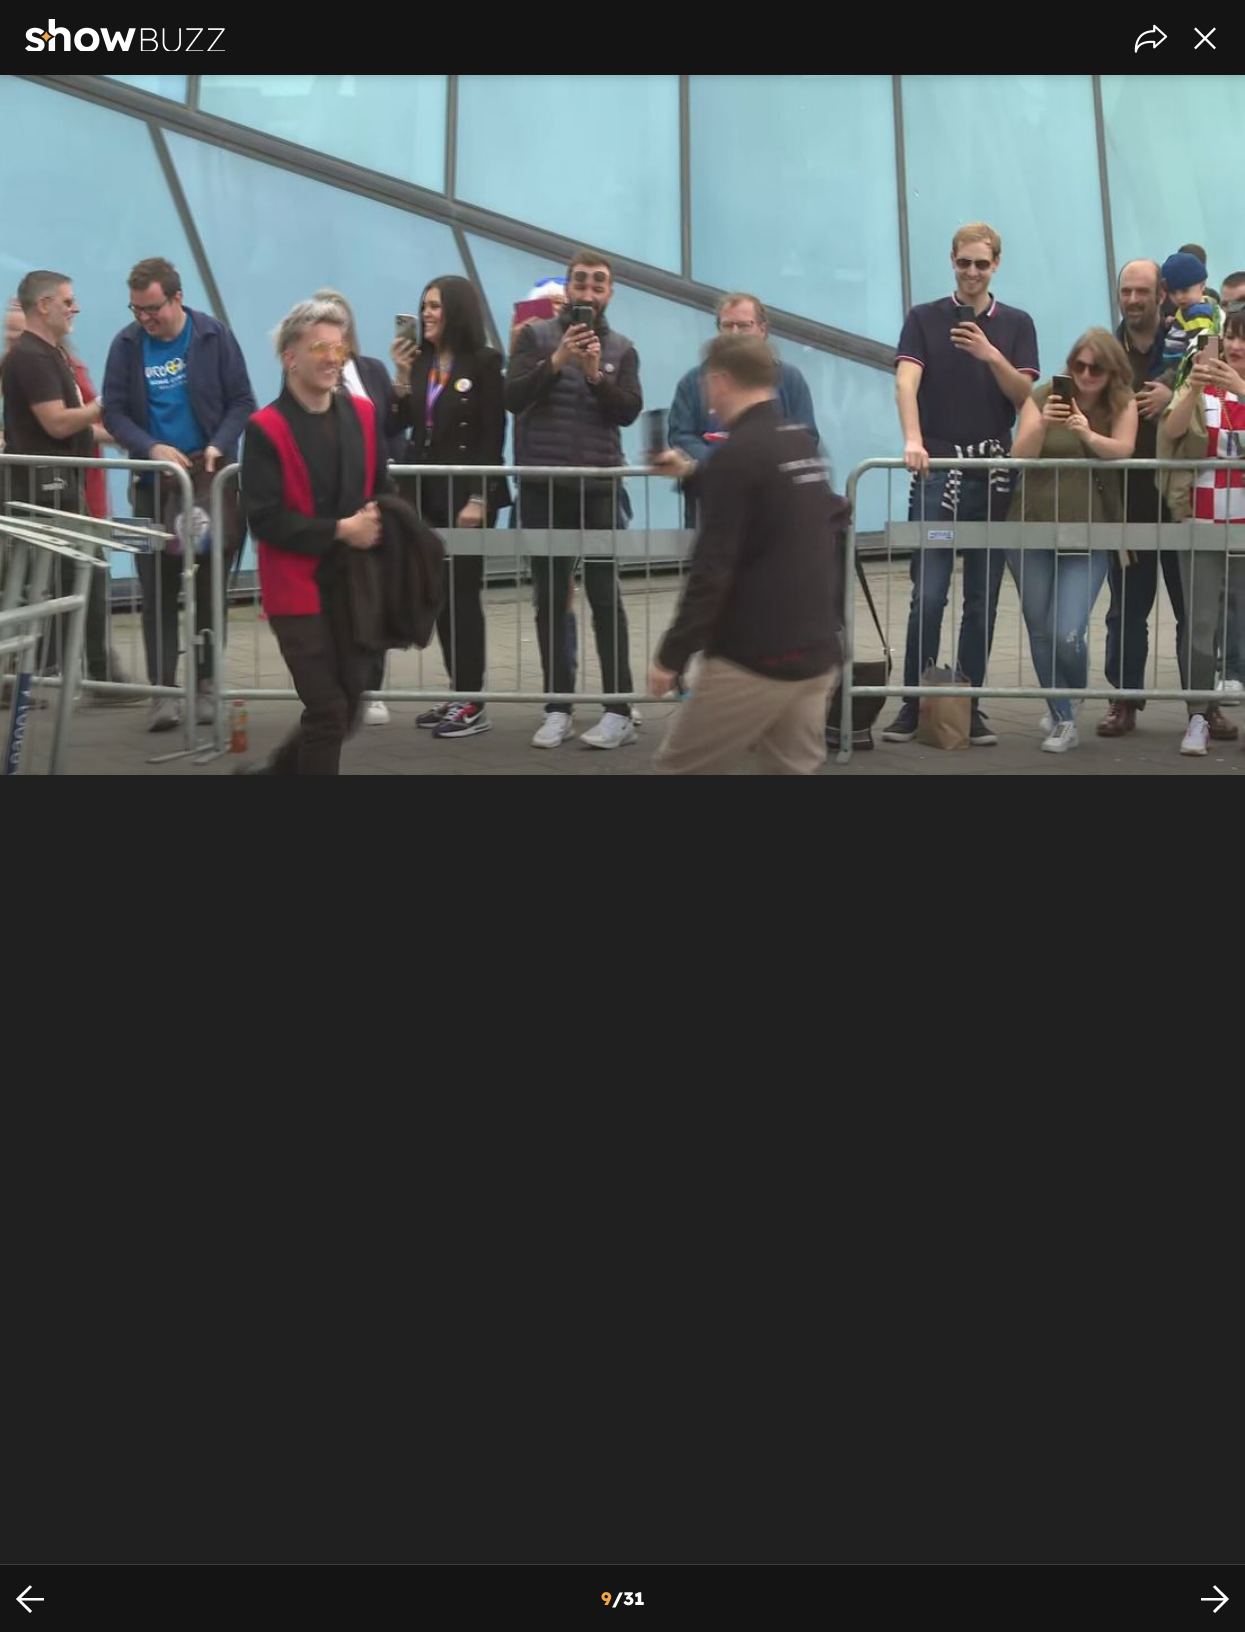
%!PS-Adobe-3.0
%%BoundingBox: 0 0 1245 1632
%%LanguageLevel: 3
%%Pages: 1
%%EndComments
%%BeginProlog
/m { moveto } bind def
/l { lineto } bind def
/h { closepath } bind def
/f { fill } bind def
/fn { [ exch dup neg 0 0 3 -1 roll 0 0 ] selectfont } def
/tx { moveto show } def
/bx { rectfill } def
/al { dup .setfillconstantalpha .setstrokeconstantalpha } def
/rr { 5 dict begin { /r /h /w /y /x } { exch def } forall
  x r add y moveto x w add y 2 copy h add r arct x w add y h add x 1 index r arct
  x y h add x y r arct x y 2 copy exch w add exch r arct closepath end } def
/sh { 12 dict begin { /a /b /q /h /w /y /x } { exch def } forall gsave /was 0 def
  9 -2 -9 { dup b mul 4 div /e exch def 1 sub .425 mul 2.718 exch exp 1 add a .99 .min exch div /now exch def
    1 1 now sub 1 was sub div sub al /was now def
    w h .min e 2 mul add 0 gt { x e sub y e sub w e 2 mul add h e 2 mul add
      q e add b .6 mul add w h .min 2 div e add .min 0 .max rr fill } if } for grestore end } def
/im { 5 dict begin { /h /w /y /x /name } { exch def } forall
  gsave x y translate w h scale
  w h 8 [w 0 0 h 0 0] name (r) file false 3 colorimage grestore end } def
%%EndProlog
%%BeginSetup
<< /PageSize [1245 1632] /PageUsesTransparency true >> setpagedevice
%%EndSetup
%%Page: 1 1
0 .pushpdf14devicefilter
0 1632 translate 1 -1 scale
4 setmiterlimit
0.125 setgray
0 0 1245 1632 bx
(image3.raw) 0 75 1245 700 im
0 setgray
0 3 1245 75 0 4.5 0.15 sh
0.078 setgray
0 0 1245 75 bx
(image0.raw) 25 19 200 32 im
(image1.raw) 1134 24 34 29 im
(image2.raw) 1194 27 22 23 im
0 1565 1245 67 bx
0.239 setgray
0 1564 1245 1 bx
1 setgray
30 1613 m 32 1611 l 21 1600.5 l 44 1600.5 l 44 1598 l 21 1598 l 32 1587 l 30 1585.5 l 16 1599 l h f
/Lexend-ExtraBold 18 fn
0.949 0.643 0.267 setrgbcolor
(9) 601 1605 tx
1 setgray
(/31) 612 1605 tx
1215 1613 m 1213 1611 l 1224 1600.5 l 1201 1600.5 l 1201 1598 l 1224 1598 l 1213 1587 l 1215 1585.5 l 1229 1599 l h f
.poppdf14devicefilter showpage
%%EOF
